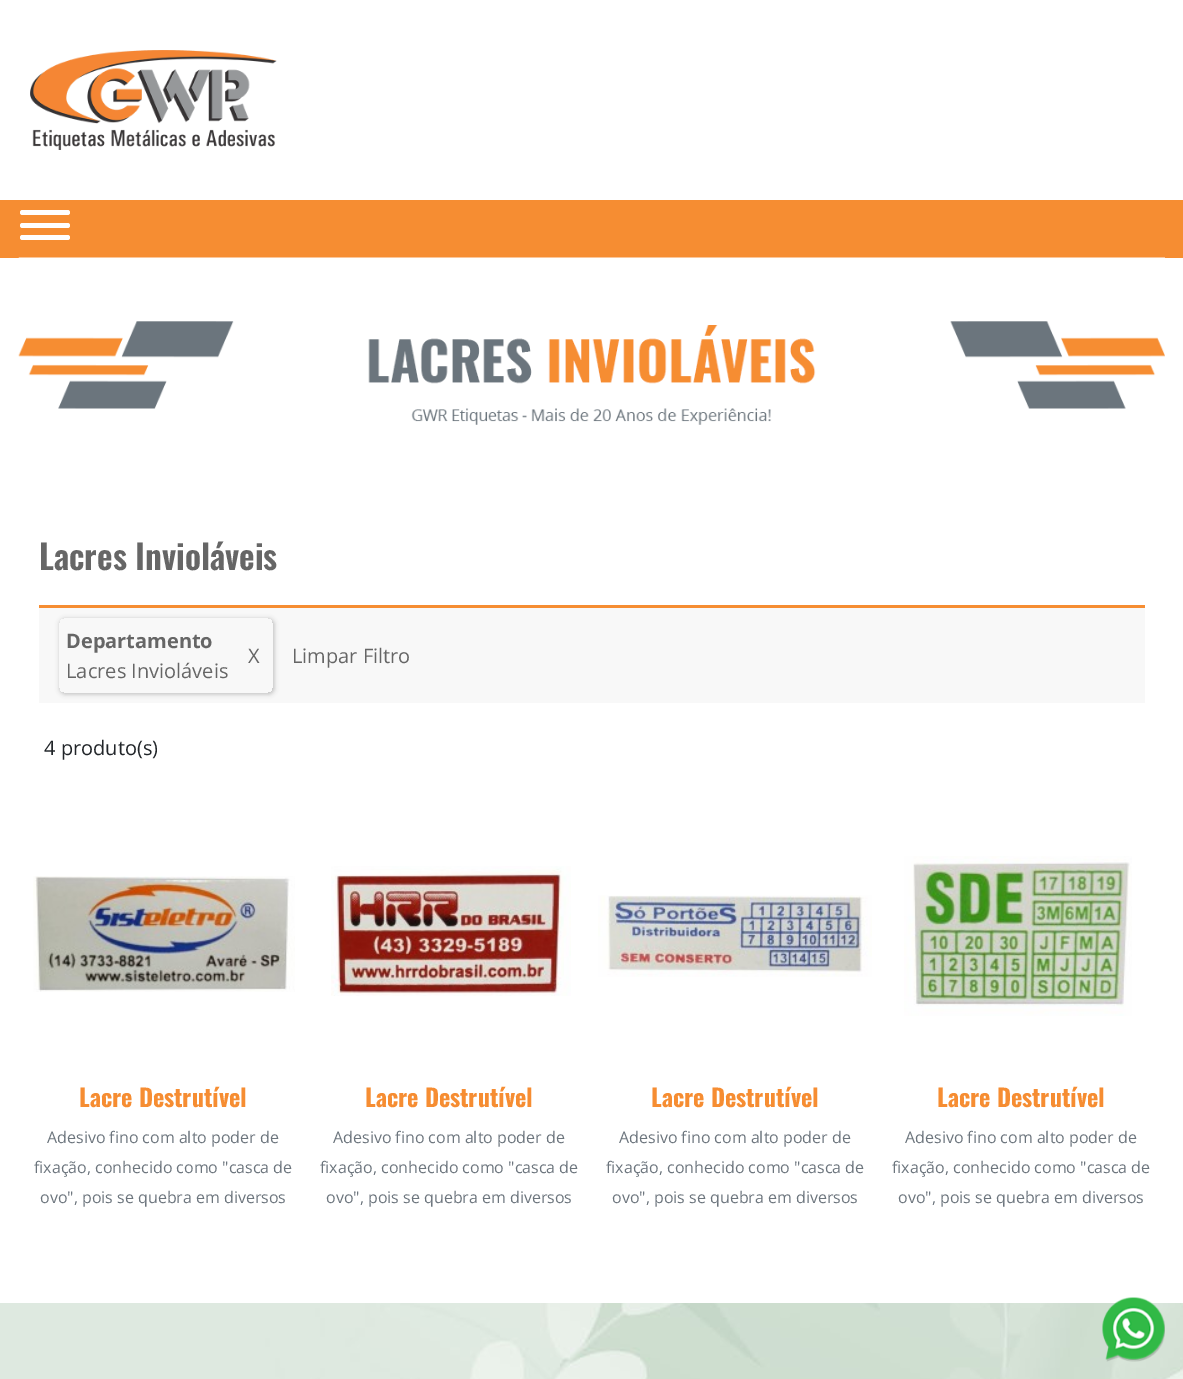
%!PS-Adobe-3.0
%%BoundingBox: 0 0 1183 1379
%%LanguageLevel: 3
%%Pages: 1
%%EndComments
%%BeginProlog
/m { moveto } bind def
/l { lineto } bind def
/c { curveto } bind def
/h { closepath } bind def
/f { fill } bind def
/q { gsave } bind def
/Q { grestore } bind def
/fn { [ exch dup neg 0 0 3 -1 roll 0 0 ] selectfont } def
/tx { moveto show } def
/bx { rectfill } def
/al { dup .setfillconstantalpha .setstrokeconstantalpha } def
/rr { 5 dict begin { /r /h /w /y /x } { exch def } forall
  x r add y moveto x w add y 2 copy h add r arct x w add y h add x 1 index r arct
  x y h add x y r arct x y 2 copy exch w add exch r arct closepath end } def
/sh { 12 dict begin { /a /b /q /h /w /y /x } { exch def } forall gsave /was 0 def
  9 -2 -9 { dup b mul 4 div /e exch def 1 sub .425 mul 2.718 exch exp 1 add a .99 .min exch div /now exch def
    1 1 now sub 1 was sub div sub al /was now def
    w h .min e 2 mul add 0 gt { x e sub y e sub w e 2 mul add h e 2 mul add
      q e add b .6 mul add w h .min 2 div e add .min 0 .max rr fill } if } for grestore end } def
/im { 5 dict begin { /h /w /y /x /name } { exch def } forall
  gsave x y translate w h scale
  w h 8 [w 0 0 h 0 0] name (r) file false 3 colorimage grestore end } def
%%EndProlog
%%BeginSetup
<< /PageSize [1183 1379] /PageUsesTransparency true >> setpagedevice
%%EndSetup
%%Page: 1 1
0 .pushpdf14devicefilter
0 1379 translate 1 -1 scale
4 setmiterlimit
1 setgray
0 0 1183 1379 bx
(image0.raw) 30 50 247 100 im
0.965 0.553 0.196 setrgbcolor
0 200 1183 58 bx
1 setgray
20 210 50 5 2.5 rr f
20 223 50 5 2.5 rr f
20 235 50 5 2.5 rr f
(image1.raw) 18 257 1147 168 im
0.965 0.553 0.196 setrgbcolor
39 605 1106 3 bx
/Oswald-SemiBold 34 fn
0.4 setgray
(Lacres Invioláveis) 39 570 tx
0.973 setgray
39 608 1106 95 bx
q
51 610 m 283 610 l 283 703 l 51 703 l h 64 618 m 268 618 l 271 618 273 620 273 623 c 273 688 l 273 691 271 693 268 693 c 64 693 l 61 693 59 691 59 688 c 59 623 l 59 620 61 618 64 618 c h eoclip newpath
0.733 setgray
60 619 214 75 5 2.5 1 sh
Q
/OpenSans-Bold 20 fn
0.4 setgray
(Departamento) 66 648 tx
/OpenSans-Regular 20 fn
(Lacres Invioláveis) 66 678 tx
(X) 248 663 tx
(Limpar Filtro) 292 663 tx
0.129 0.145 0.161 setrgbcolor
(4 produto\(s\)) 44 755 tx
(image2.raw) 33 876 262 116 im
/Oswald-Bold 24 fn
0.965 0.553 0.196 setrgbcolor
(Lacre Destrutível) 79 1107 tx
/OpenSans-Regular 16 fn
0.424 0.459 0.49 setrgbcolor
(Adesivo fino com alto poder de) 47 1143 tx
(fixação, conhecido como "casca de) 34 1173 tx
(ovo", pois se quebra em diversos) 40 1203 tx
(image3.raw) 331 866 240 130 im
/Oswald-Bold 24 fn
0.965 0.553 0.196 setrgbcolor
(Lacre Destrutível) 365 1107 tx
/OpenSans-Regular 16 fn
0.424 0.459 0.49 setrgbcolor
(Adesivo fino com alto poder de) 333 1143 tx
(fixação, conhecido como "casca de) 320 1173 tx
(ovo", pois se quebra em diversos) 326 1203 tx
(image4.raw) 598 895 274 82 im
/Oswald-Bold 24 fn
0.965 0.553 0.196 setrgbcolor
(Lacre Destrutível) 651 1107 tx
/OpenSans-Regular 16 fn
0.424 0.459 0.49 setrgbcolor
(Adesivo fino com alto poder de) 619 1143 tx
(fixação, conhecido como "casca de) 606 1173 tx
(ovo", pois se quebra em diversos) 612 1203 tx
(image5.raw) 904 856 228 160 im
/Oswald-Bold 24 fn
0.965 0.553 0.196 setrgbcolor
(Lacre Destrutível) 937 1107 tx
/OpenSans-Regular 16 fn
0.424 0.459 0.49 setrgbcolor
(Adesivo fino com alto poder de) 905 1143 tx
(fixação, conhecido como "casca de) 892 1173 tx
(ovo", pois se quebra em diversos) 898 1203 tx
(image7.raw) 0 1303 1183 76 im
(image6.raw) 1102 1297 63 65 im
.poppdf14devicefilter showpage
%%EOF
